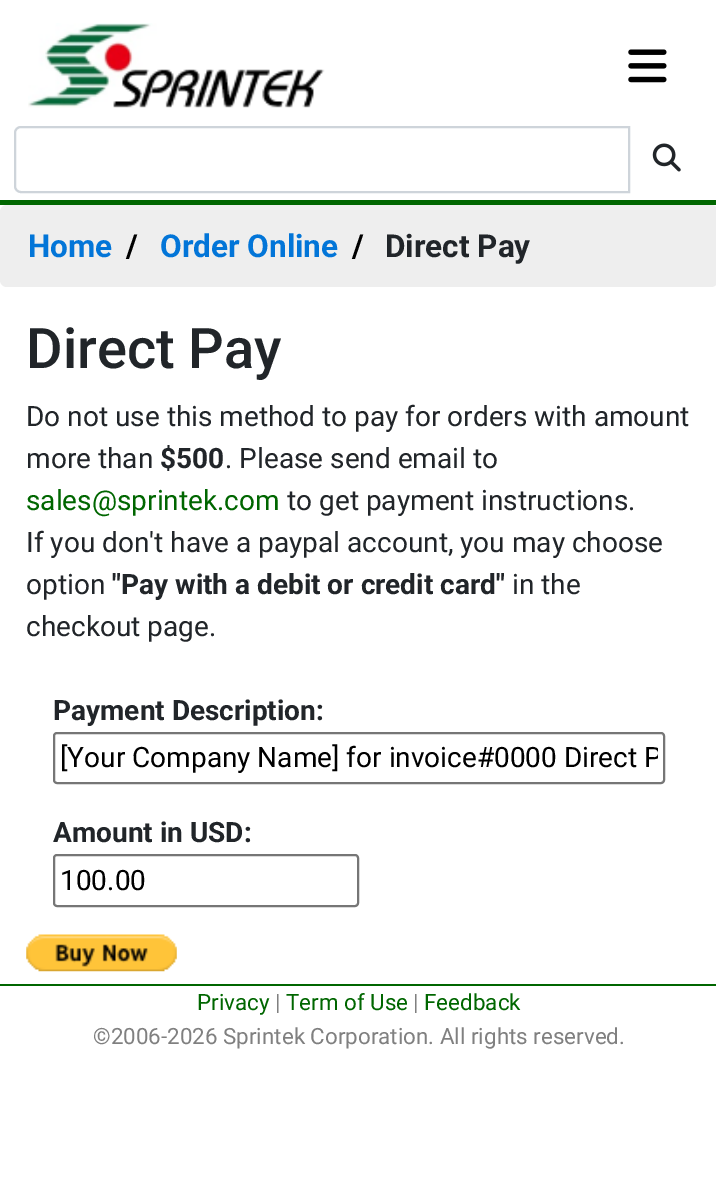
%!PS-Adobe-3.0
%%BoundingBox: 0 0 716 1185
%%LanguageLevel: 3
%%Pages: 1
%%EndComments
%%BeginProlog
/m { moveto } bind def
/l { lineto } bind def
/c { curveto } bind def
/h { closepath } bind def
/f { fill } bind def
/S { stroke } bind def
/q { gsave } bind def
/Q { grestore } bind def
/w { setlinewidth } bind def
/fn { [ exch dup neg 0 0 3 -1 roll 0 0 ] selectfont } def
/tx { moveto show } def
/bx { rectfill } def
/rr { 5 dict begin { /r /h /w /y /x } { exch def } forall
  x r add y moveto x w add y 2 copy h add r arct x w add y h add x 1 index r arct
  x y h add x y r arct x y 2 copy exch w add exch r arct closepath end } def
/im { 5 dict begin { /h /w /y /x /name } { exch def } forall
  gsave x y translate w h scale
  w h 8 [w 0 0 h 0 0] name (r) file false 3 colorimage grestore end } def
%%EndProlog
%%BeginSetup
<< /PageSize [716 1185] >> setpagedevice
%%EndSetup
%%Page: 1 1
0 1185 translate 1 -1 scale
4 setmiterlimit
1 setgray
0 0 716 1185 bx
0 0.4 0 setrgbcolor
0 200 716 5 bx
(image0.raw) 28 23 297 85 im
(image1.raw) 628 49 39 34 im
0.808 0.831 0.855 setrgbcolor
2 w
21 127 m 629 127 l 629 192 l 21 192 l 17.5 192 15 189.5 15 186 c 15 133 l 15 129.5 17.5 127 21 127 c h S
(image2.raw) 652 143 29 29 im
0.933 setgray
0 205 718 82 7 rr f
/Roboto-Bold 31.5 fn
0.008 0.459 0.847 setrgbcolor
(Home) 28 257 tx
0 setgray
(/) 126 257 tx
0.008 0.459 0.847 setrgbcolor
(Order Online) 160 257 tx
0 setgray
(/) 352 257 tx
0.129 0.145 0.161 setrgbcolor
(Direct Pay) 385 257 tx
/Roboto-Medium 56 fn
(Direct Pay) 26 368 tx
/Roboto-Regular 28 fn
(Do not use this method to pay for orders with amount) 26 426 tx
(more than) 26 468 tx
/Roboto-Bold 28 fn
($500) 160 468 tx
/Roboto-Regular 28 fn
(. Please send email to) 225 468 tx
0 0.4 0 setrgbcolor
(sales@sprintek.com) 26 510 tx
0.129 0.145 0.161 setrgbcolor
(to get payment instructions.) 287 510 tx
(If you don't have a paypal account, you may choose) 26 552 tx
(option) 26 594 tx
/Roboto-Bold 28 fn
("Pay with a debit or credit card") 112 594 tx
/Roboto-Regular 28 fn
(in the) 512 594 tx
(checkout page.) 26 636 tx
/Roboto-Bold 28 fn
(Payment Description:) 53 720 tx
0.463 setgray
54 733 610 50 3 rr S
q
60 737 598 42 rectclip
/Roboto-Regular 28 fn
0 setgray
([Your Company Name] for invoice#0000 Direct P) 60 767 tx
Q
0.129 0.145 0.161 setrgbcolor
(Amount in USD:) 53 842 tx
0.463 setgray
54 855 304 51 3 rr S
/Roboto-Regular 28 fn
0 setgray
(100.00) 60 890 tx
(image3.raw) 26 934 151 38 im
0 0.4 0 setrgbcolor
0 984 716 2 bx
/Roboto-Regular 22.4 fn
(Privacy) 197 1010 tx
0.502 setgray
(|) 275 1010 tx
0 0.4 0 setrgbcolor
(Term of Use) 286 1010 tx
0.502 setgray
(|) 413 1010 tx
0 0.4 0 setrgbcolor
(Feedback) 424 1010 tx
0.502 setgray
(©2006-2026 Sprintek Corporation. All rights reserved.) 93 1044 tx
showpage
%%EOF
